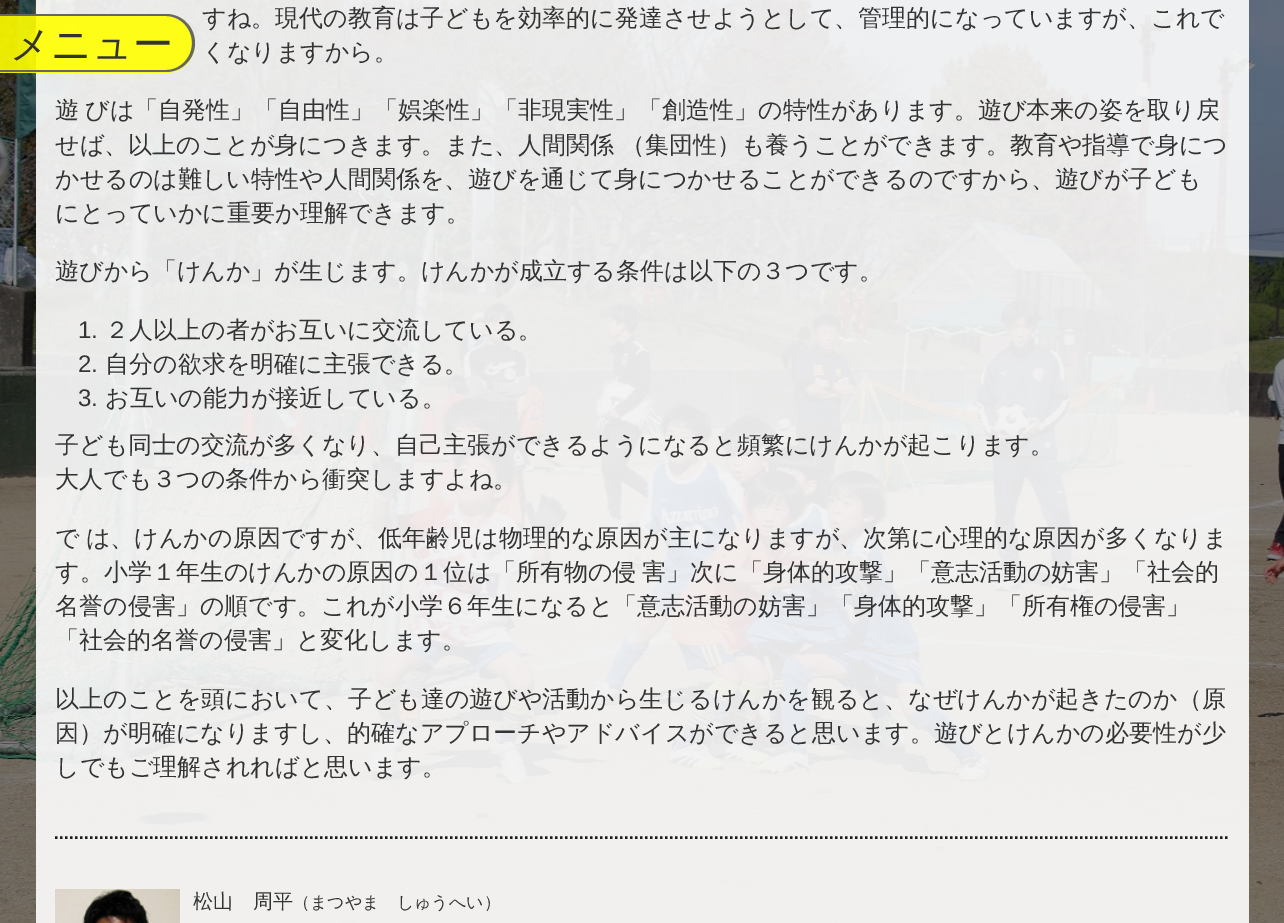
%!PS-Adobe-3.0
%%BoundingBox: 0 0 1284 923
%%LanguageLevel: 3
%%Pages: 1
%%EndComments
%%BeginProlog
/m { moveto } bind def
/l { lineto } bind def
/c { curveto } bind def
/h { closepath } bind def
/f { fill } bind def
/S { stroke } bind def
/w { setlinewidth } bind def
/fn { [ exch dup neg 0 0 3 -1 roll 0 0 ] selectfont } def
/tx { moveto show } def
/bx { rectfill } def
/al { dup .setfillconstantalpha .setstrokeconstantalpha } def
/im { 5 dict begin { /h /w /y /x /name } { exch def } forall
  gsave x y translate w h scale
  w h 8 [w 0 0 h 0 0] name (r) file false 3 colorimage grestore end } def
%%EndProlog
%%BeginSetup
<< /PageSize [1284 923] /PageUsesTransparency true >> setpagedevice
%%EndSetup
%%Page: 1 1
0 .pushpdf14devicefilter
0 923 translate 1 -1 scale
4 setmiterlimit
1 setgray
0 0 1284 923 bx
(image0.raw) 0 0 1284 923 im
/WenQuanYiZenHei-Medium 24 fn
0.2 setgray
(すね。現代の教育は子どもを効率的に発達させようとして、管理的になっていますが、これで) 202 26 tx
(くなりますから。) 202 60 tx
55 118 m -1 0 32 (遊 びは「自発性」「自由性」「娯楽性」「非現実性」「創造性」の特性があります。遊び本来の姿を取り戻) widthshow
55 153 m -1 0 32 (せば、以上のことが身につきます。また、人間関係 （集団性）も養うことができます。教育や指導で身につ) widthshow
(かせるのは難しい特性や人間関係を、遊びを通じて身につかせることができるのですから、遊びが子ども) 55 187 tx
(にとっていかに重要か理解できます。) 55 221 tx
(遊びから「けんか」が生じます。けんかが成立する条件は以下の３つです。) 55 279 tx
/LiberationSans-Regular 24 fn
(1.) 78 338 tx
/WenQuanYiZenHei-Medium 24 fn
(２人以上の者がお互いに交流している。) 105 338 tx
/LiberationSans-Regular 24 fn
(2.) 78 372 tx
/WenQuanYiZenHei-Medium 24 fn
(自分の欲求を明確に主張できる。) 105 372 tx
/LiberationSans-Regular 24 fn
(3.) 78 406 tx
/WenQuanYiZenHei-Medium 24 fn
(お互いの能力が接近している。) 105 406 tx
(子ども同士の交流が多くなり、自己主張ができるようになると頻繁にけんかが起こります。) 55 453 tx
(大人でも３つの条件から衝突しますよね。) 55 487 tx
55 546 m -1 0 32 (で は、けんかの原因ですが、低年齢児は物理的な原因が主になりますが、次第に心理的な原因が多くなりま) widthshow
55 580 m -1 0 32 (す。小学１年生のけんかの原因の１位は「所有物の侵 害」次に「身体的攻撃」「意志活動の妨害」「社会的) widthshow
(名誉の侵害」の順です。これが小学６年生になると「意志活動の妨害」「身体的攻撃」「所有権の侵害」) 55 614 tx
(「社会的名誉の侵害」と変化します。) 55 648 tx
(以上のことを頭において、子ども達の遊びや活動から生じるけんかを観ると、なぜけんかが起きたのか（原) 55 707 tx
(因）が明確になりますし、的確なアプローチやアドバイスができると思います。遊びとけんかの必要性が少) 55 741 tx
(しでもご理解されればと思います。) 55 775 tx
0.933 setgray
55 835 1175 1 bx
0.102 setgray
2.5 w
[2.5 2.5] 0 setdash
55 837.5 m 1230 837.5 l S
(image1.raw) 55 889 125 34 im
/WenQuanYiZenHei-Medium 20 fn
0.2 setgray
(松山　周平) 193 908 tx
/WenQuanYiZenHei-Medium 17 fn
(（まつやま　しゅうへい）) 293 908 tx
0.9 al
1 1 0 setrgbcolor
0 14 m 165.5 14 l 182 14 195 27 195 43.5 c 195 60 182 73 165.5 73 c 0 73 l h f
1 al
0.4 setgray
0 14 m 166 14 l 182 14 195 27 195 43 c 195 59 182 72 166 72 c 0 72 l h 0 16 m 166 16 l 180 16 192 28 192 43 c 192 58 180 70 166 70 c 0 70 l h eofill
/WenQuanYiZenHei-Medium 40 fn
0.2 setgray
(メニュー) 10 58 tx
.poppdf14devicefilter showpage
%%EOF
